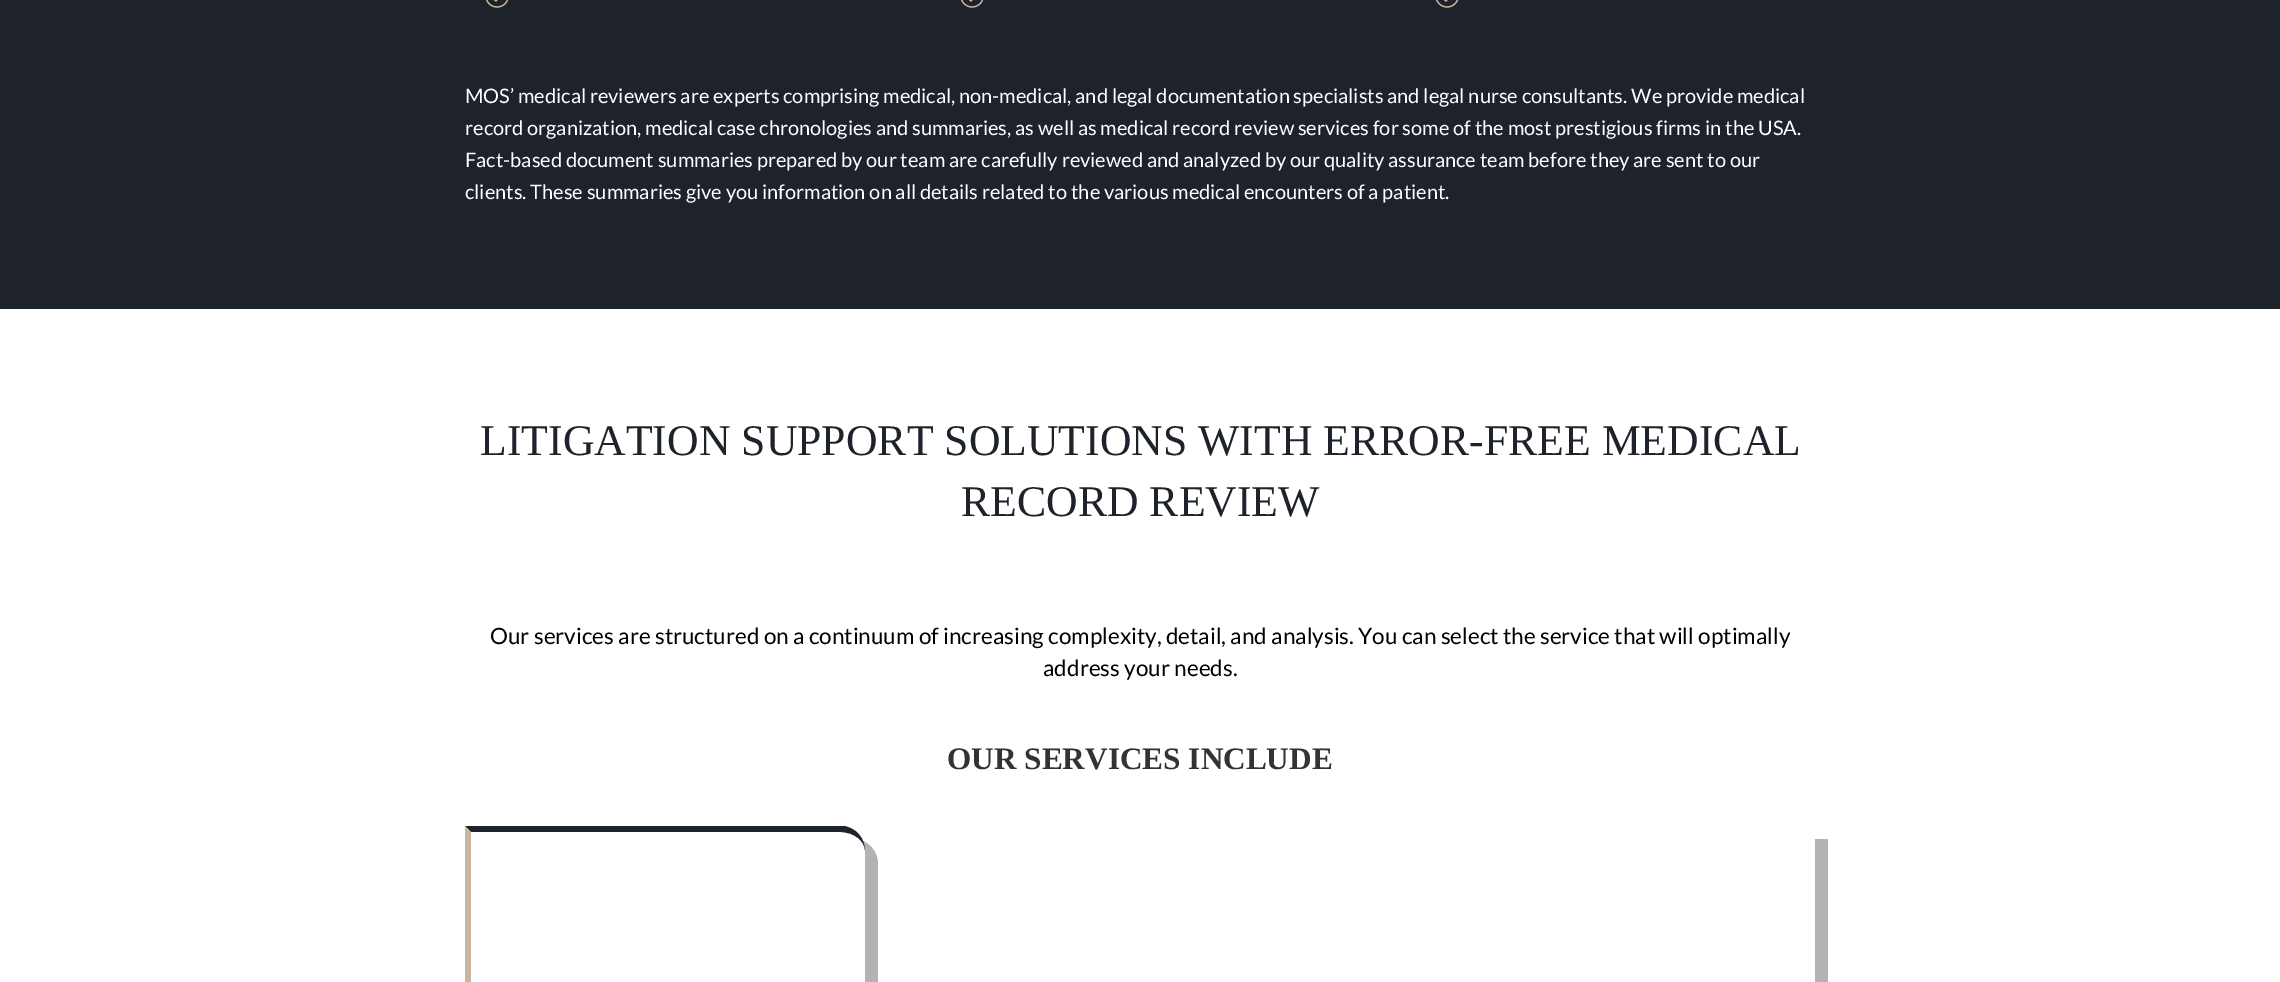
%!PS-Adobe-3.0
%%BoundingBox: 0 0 2280 982
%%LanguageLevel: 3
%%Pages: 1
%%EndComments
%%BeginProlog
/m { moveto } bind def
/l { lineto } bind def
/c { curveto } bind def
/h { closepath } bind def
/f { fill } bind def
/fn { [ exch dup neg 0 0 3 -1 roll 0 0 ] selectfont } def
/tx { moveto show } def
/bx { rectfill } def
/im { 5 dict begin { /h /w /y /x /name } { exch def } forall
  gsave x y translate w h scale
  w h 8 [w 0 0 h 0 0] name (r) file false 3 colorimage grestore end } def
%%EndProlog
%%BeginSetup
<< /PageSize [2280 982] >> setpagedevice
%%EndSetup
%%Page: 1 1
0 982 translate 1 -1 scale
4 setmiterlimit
0.118 0.137 0.169 setrgbcolor
0 0 2280 982 bx
(image0.raw) 485 0 24 8 im
(image0.raw) 960 0 24 8 im
(image0.raw) 1435 0 24 8 im
/Lato-Regular 20 fn
1 setgray
(MOS’ medical reviewers are experts comprising medical, non-medical, and legal documentation specialists and legal nurse consultants. We provide medical) 465 103 tx
(record organization, medical case chronologies and summaries, as well as medical record review services for some of the most prestigious firms in the USA.) 465 135 tx
(Fact-based document summaries prepared by our team are carefully reviewed and analyzed by our quality assurance team before they are sent to our) 465 167 tx
(clients. These summaries give you information on all details related to the various medical encounters of a patient.) 465 199 tx
0 309 2280 673 bx
/LiberationSerif-Regular 43.75 fn
0.118 0.137 0.169 setrgbcolor
(LITIGATION SUPPORT SOLUTIONS WITH ERROR-FREE MEDICAL) 480 455 tx
(RECORD REVIEW) 961 516 tx
/Lato-Regular 22.5 fn
0 setgray
(Our services are structured on a continuum of increasing complexity, detail, and analysis. You can select the service that will optimally) 490 644 tx
(address your needs.) 1043 676 tx
/LiberationSerif-Bold 31.25 fn
0.2 setgray
(OUR SERVICES INCLUDE) 947 769 tx
0.702 setgray
480 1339 m 484 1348 493 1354 503 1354 c 878 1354 l 878 864 l 878 854 872 845 863 841 c 864 844 865 848 865 851 c 865 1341 l 490 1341 l 487 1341 483 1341 480 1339 c h f
0.118 0.137 0.169 setrgbcolor
471 832 m 465 826 l 844 826 l 856 828 865 838 865 851 c 865 841 854 832 840 832 c h f
0.792 0.714 0.631 setrgbcolor
465 826 m 465 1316 l 465 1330 476 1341 490 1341 c 480 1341 471 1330 471 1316 c 471 832 l h f
0.702 setgray
953 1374 m 953 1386 l 1803 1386 l 1817 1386 1828 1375 1828 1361 c 1828 839 l 1815 839 l 1815 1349 l 1815 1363 1804 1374 1790 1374 c h f
showpage
%%EOF
